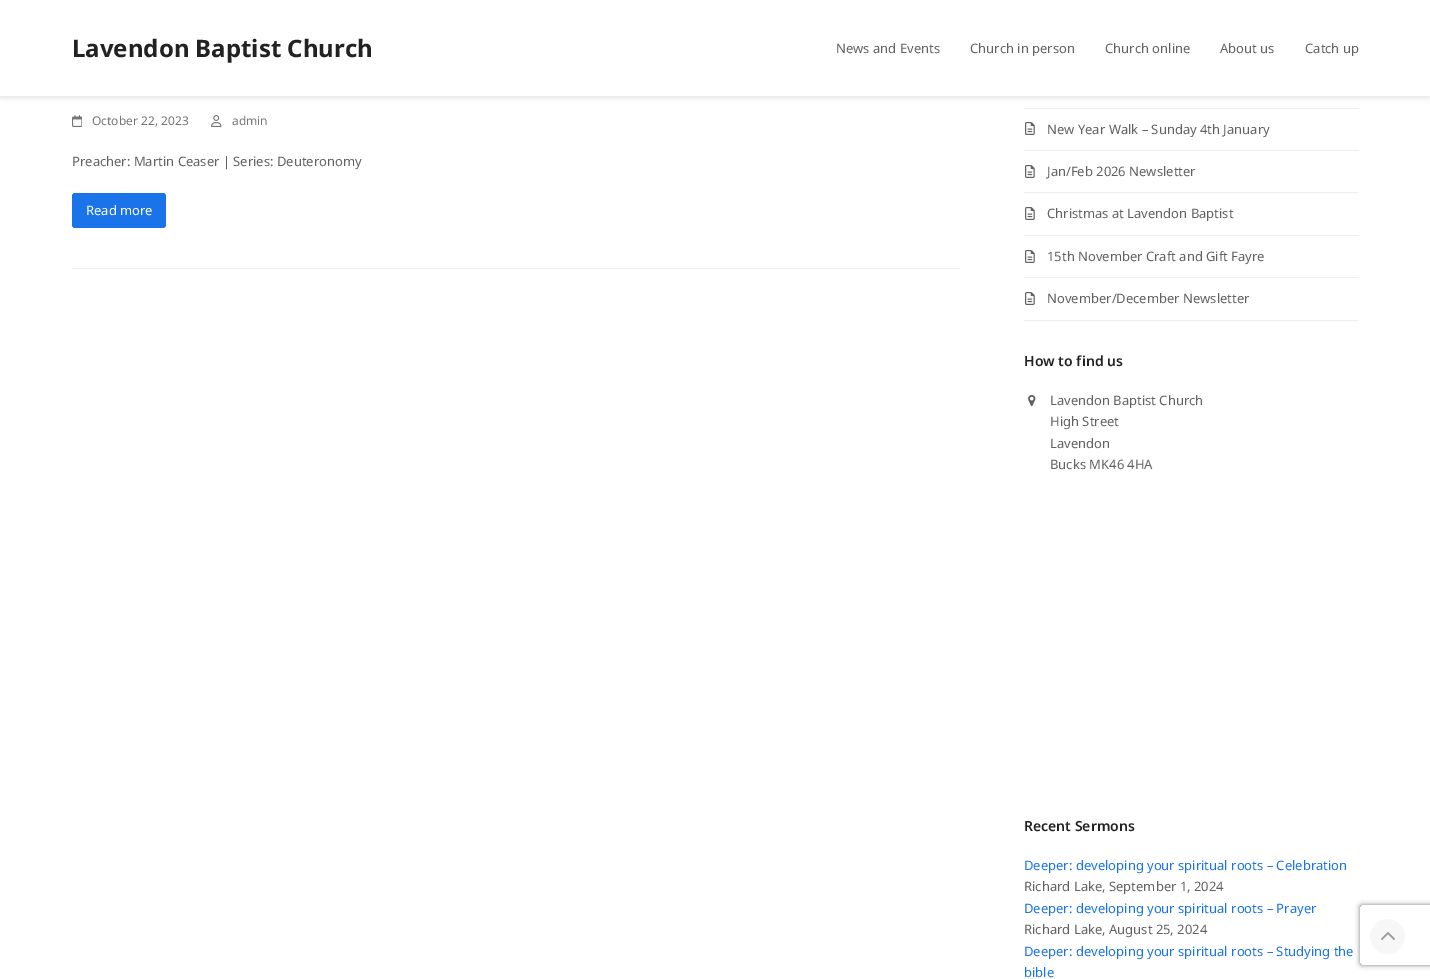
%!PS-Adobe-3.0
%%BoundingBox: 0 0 1430 979
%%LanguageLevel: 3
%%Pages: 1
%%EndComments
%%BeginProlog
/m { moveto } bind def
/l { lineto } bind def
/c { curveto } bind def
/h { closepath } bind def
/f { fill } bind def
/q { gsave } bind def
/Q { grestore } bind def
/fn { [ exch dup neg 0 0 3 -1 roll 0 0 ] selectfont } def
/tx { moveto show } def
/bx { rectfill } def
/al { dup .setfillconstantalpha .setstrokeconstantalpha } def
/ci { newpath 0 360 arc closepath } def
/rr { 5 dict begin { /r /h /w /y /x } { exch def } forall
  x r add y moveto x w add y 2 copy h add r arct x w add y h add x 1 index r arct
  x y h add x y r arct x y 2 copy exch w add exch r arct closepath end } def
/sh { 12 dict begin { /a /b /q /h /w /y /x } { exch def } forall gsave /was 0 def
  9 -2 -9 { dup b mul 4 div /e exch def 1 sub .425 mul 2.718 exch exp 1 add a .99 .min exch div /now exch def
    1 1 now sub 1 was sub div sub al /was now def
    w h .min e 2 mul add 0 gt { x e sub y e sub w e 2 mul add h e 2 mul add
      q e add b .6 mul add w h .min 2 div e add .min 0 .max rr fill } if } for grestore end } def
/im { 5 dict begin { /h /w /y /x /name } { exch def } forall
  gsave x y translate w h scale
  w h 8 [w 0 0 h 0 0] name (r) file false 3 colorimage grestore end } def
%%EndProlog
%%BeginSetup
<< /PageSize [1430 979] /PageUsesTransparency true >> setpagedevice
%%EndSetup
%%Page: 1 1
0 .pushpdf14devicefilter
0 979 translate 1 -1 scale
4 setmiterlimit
1 setgray
0 0 1430 979 bx
0 setgray
0 2 1430 96 0 2.5 0.1 sh
1 setgray
0 0 1430 96 bx
/NotoSans-Bold 24 fn
0.133 setgray
(Lavendon Baptist Church) 72 57 tx
/NotoSans-Regular 13 fn
0.38 setgray
(News and Events) 836 53 tx
(Church in person) 970 53 tx
(Church online) 1105 53 tx
(About us) 1220 53 tx
(Catch up) 1305 53 tx
(image0.raw) 72 115 10 12 im
/NotoSans-Regular 12 fn
0.459 setgray
(October 22, 2023) 92 125 tx
(image1.raw) 211 115 11 12 im
(admin) 232 125 tx
/NotoSans-Regular 13 fn
0.38 setgray
(Preacher: Martin Ceaser | Series: Deuteronomy) 72 166 tx
0.102 0.451 0.91 setrgbcolor
72 193 94 35 3 rr f
1 setgray
(Read more) 86 215 tx
0.933 setgray
72 268 888 1 bx
1024 108 335 1 bx
1024 150 335 1 bx
(image2.raw) 1025 122 10 13 im
0.38 setgray
(New Year Walk – Sunday 4th January) 1047 134 tx
0.933 setgray
1024 192 335 1 bx
(image2.raw) 1025 165 10 13 im
0.38 setgray
(Jan/Feb 2026 Newsletter) 1047 176 tx
0.933 setgray
1024 235 335 1 bx
(image2.raw) 1025 207 10 13 im
0.38 setgray
(Christmas at Lavendon Baptist) 1047 218 tx
0.933 setgray
1024 277 335 1 bx
(image2.raw) 1025 250 10 13 im
0.38 setgray
(15th November Craft and Gift Fayre) 1047 261 tx
0.933 setgray
1024 320 335 1 bx
(image2.raw) 1025 292 10 13 im
0.38 setgray
(November/December Newsletter) 1047 303 tx
/NotoSans-SemiBold 14 fn
0.133 setgray
(How to find us) 1024 366 tx
(image3.raw) 1028 394 8 12 im
/NotoSans-Regular 13 fn
0.38 setgray
(Lavendon Baptist Church) 1050 405 tx
(High Street) 1050 426 tx
(Lavendon) 1050 448 tx
(Bucks MK46 4HA) 1050 469 tx
/NotoSans-SemiBold 14 fn
0.133 setgray
(Recent Sermons) 1024 831 tx
/NotoSans-Regular 13 fn
0.102 0.451 0.91 setrgbcolor
(Deeper: developing your spiritual roots – Celebration) 1024 870 tx
0.38 setgray
(Richard Lake, September 1, 2024) 1024 891 tx
0.102 0.451 0.91 setrgbcolor
(Deeper: developing your spiritual roots – Prayer) 1024 913 tx
0.38 setgray
(Richard Lake, August 25, 2024) 1024 934 tx
0.102 0.451 0.91 setrgbcolor
(Deeper: developing your spiritual roots – Studying the) 1024 956 tx
(bible) 1024 977 tx
q
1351 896 m 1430 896 l 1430 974 l 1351 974 l h 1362 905 m 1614 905 l 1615 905 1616 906 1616 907 c 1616 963 l 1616 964 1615 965 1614 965 c 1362 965 l 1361 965 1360 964 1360 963 c 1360 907 l 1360 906 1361 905 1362 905 c h eoclip newpath
0.502 setgray
1360 905 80 60 2 2.5 1 sh
Q
0.969 setgray
1387.5 936.5 17.5 ci f
(image4.raw) 1381 932 14 8 im
.poppdf14devicefilter showpage
%%EOF
